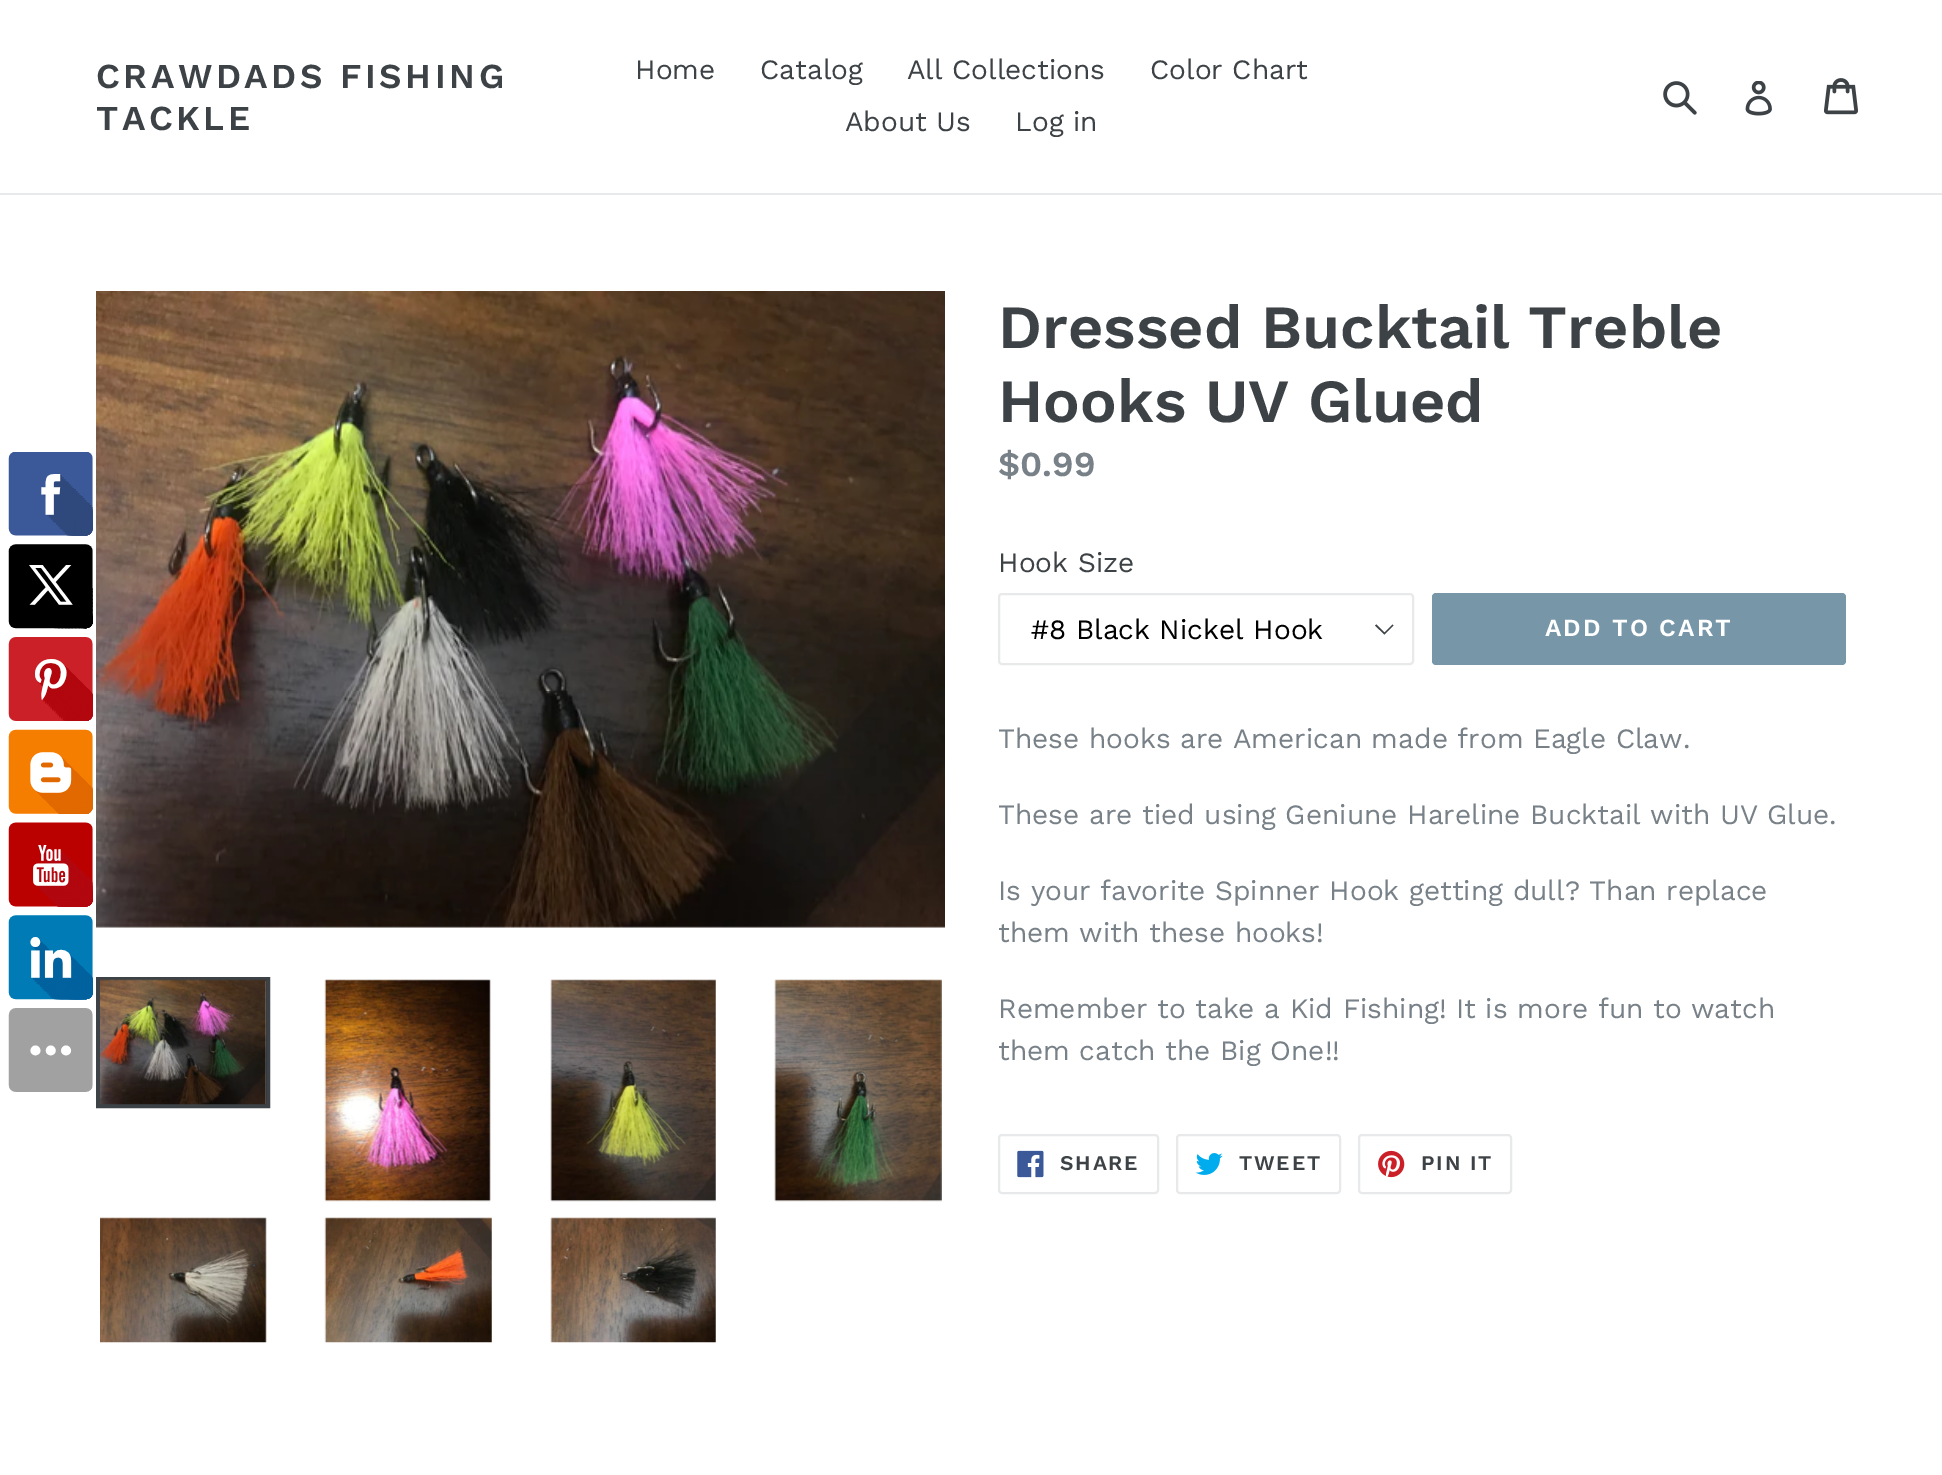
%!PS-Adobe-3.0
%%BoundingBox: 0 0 1942 1475
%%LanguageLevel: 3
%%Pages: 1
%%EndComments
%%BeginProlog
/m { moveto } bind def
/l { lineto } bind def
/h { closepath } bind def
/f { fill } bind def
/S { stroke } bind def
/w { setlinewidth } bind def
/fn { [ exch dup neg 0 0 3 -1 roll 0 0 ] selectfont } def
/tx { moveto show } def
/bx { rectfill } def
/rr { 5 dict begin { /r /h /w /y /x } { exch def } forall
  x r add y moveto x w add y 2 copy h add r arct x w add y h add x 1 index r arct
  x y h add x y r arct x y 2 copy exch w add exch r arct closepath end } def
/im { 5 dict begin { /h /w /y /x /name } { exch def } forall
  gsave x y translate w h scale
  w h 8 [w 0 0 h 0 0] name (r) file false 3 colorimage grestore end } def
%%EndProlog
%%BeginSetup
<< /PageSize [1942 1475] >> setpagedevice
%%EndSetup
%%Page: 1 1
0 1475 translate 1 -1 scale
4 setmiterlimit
1 setgray
0 0 1942 1475 bx
0.91 0.914 0.922 setrgbcolor
0 193 1942 2 bx
/WorkSans-SemiBold 35 fn
0.239 0.259 0.275 setrgbcolor
96 88 m 3.5 0 (CRAWDADS FISHING) ashow
96 130 m 3.5 0 (TACKLE) ashow
/WorkSans-Regular 28 fn
(Home) 635 79 tx
(Catalog) 760 79 tx
(All Collections) 907 79 tx
(Color Chart) 1150 79 tx
(About Us) 845 131 tx
(Log in) 1015 131 tx
(image0.raw) 1663 81 34 34 im
(image1.raw) 1745 81 27 35 im
(image2.raw) 1824 78 34 37 im
(image3.raw) 8 452 85 640 im
(image4.raw) 96 291 849 637 im
4 w
98 979 170 127 rectstroke
(image5.raw) 100 979 167 126 im
(image6.raw) 324 979 167 223 im
(image7.raw) 550 979 166 223 im
(image8.raw) 774 979 168 223 im
(image9.raw) 100 1217 167 126 im
(image10.raw) 324 1217 168 126 im
(image11.raw) 550 1217 166 126 im
/WorkSans-SemiBold 61.25 fn
(Dressed Bucktail Treble) 998 348 tx
(Hooks UV Glued) 998 422 tx
/WorkSans-SemiBold 35 fn
0.471 0.506 0.533 setrgbcolor
($0.99) 998 476 tx
/WorkSans-Regular 28 fn
0.239 0.259 0.275 setrgbcolor
(Hook Size) 998 572 tx
1384.5 634.5 m 1375 625.5 l 1376.5 624.5 l 1384.5 632.5 l 1392.5 624.5 l 1393.5 625.5 l h f
0.91 0.914 0.922 setrgbcolor
2 w
999 594 414 70 3 rr S
0 setgray
(#8 Black Nickel Hook) 1031 639 tx
0.467 0.588 0.659 setrgbcolor
1432 593 414 72 4 rr f
/WorkSans-SemiBold 24.5 fn
1 setgray
1545 636 m 2 0 (ADD TO CART) ashow
/WorkSans-Regular 28 fn
0.471 0.506 0.533 setrgbcolor
(These hooks are American made from Eagle Claw.) 998 748 tx
(These are tied using Geniune Hareline Bucktail with UV Glue.) 998 824 tx
(Is your favorite Spinner Hook getting dull? Than replace) 998 900 tx
(them with these hooks!) 998 942 tx
(Remember to take a Kid Fishing! It is more fun to watch) 998 1018 tx
(them catch the Big One!!) 998 1060 tx
0.91 0.914 0.922 setrgbcolor
999 1135 159 58 3 rr S
(image12.raw) 1017 1150 27 28 im
/WorkSans-SemiBold 21 fn
0.239 0.259 0.275 setrgbcolor
1060 1170 m 1.75 0 (SHARE) ashow
0.91 0.914 0.922 setrgbcolor
1177 1135 163 58 3 rr S
(image13.raw) 1195 1153 28 22 im
0.239 0.259 0.275 setrgbcolor
1239 1170 m 1.75 0 (TWEET) ashow
0.91 0.914 0.922 setrgbcolor
1359 1135 152 58 3 rr S
(image14.raw) 1378 1150 27 28 im
0.239 0.259 0.275 setrgbcolor
1421 1170 m 1.75 0 (PIN IT) ashow
showpage
%%EOF
